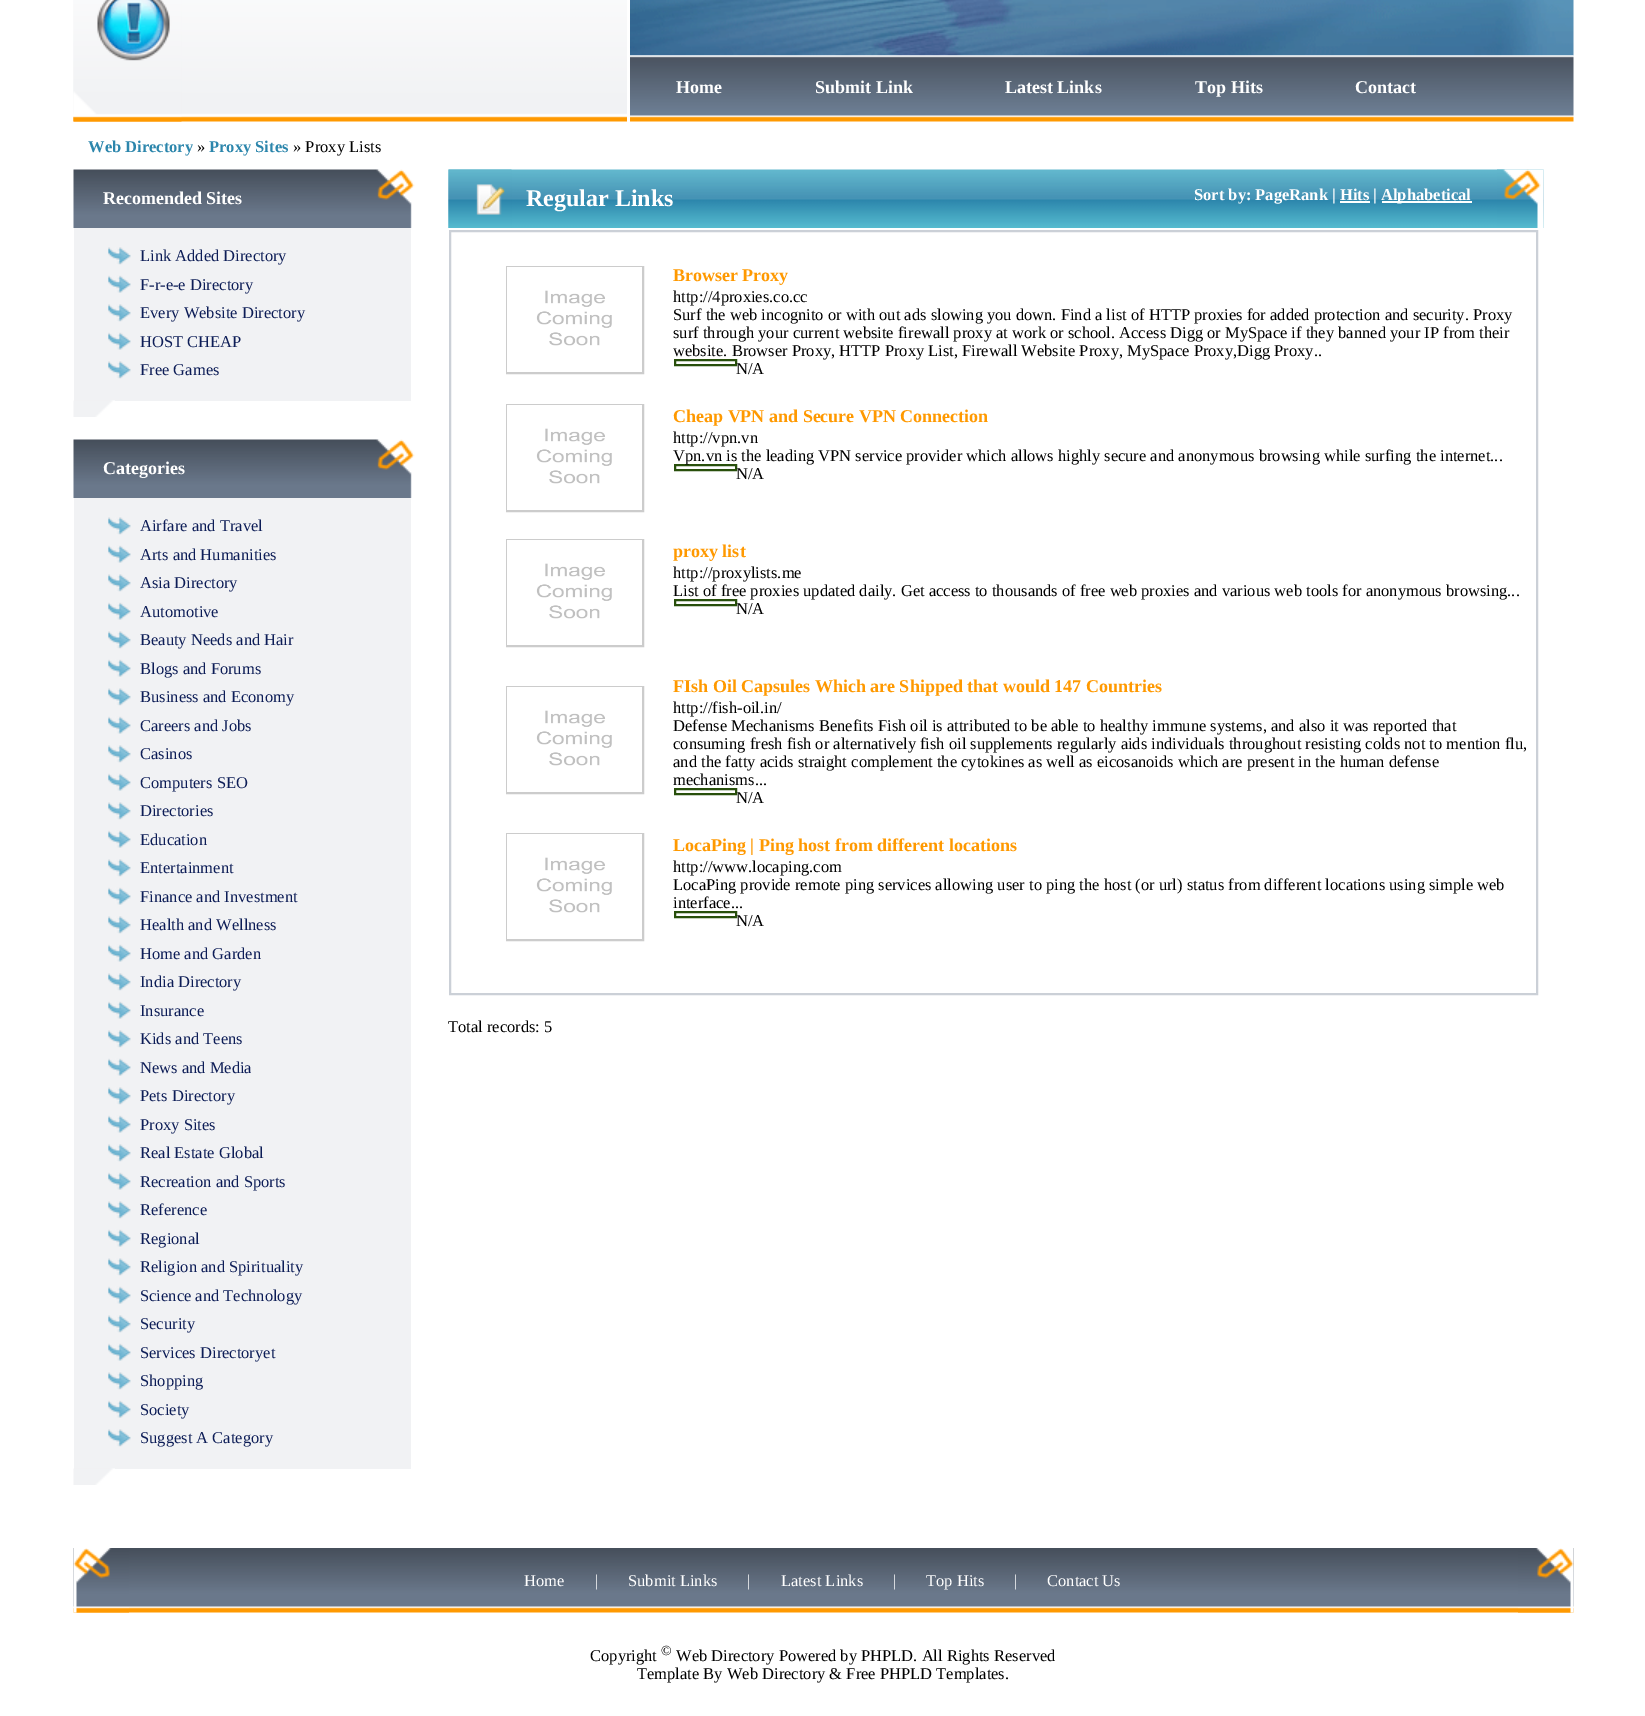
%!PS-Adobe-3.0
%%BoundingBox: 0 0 1645 1716
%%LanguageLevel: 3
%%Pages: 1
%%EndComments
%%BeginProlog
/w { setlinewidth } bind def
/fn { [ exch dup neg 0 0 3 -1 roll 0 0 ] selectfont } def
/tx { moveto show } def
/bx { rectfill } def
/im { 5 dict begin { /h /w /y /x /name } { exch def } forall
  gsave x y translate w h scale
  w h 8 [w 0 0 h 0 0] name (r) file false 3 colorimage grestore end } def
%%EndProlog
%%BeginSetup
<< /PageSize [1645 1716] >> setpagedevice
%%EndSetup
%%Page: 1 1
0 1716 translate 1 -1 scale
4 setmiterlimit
1 setgray
0 0 1645 1716 bx
(image0.raw) 73 0 554 122 im
(image1.raw) 73 0 109 122 im
(image2.raw) 630 0 944 56 im
(image3.raw) 630 55 944 67 im
/LiberationSerif-Bold 18 fn
(Home) 676 93 tx
(Submit Link) 815 93 tx
(Latest Links) 1005 93 tx
(Top Hits) 1195 93 tx
(Contact) 1355 93 tx
/LiberationSerif-Bold 16.5 fn
0.173 0.525 0.675 setrgbcolor
(Web Directory) 88 152 tx
/LiberationSerif-Regular 16.5 fn
0 setgray
(») 197 152 tx
/LiberationSerif-Bold 16.5 fn
0.173 0.525 0.675 setrgbcolor
(Proxy Sites) 209 152 tx
/LiberationSerif-Regular 16.5 fn
0 setgray
(» Proxy Lists) 293 152 tx
(image4.raw) 73 169 342 59 im
/LiberationSerif-Bold 18 fn
1 setgray
(Recomended Sites) 103 204 tx
0.945 0.949 0.957 setrgbcolor
74 228 337 173 bx
(image5.raw) 108 247 23 18 im
/LiberationSerif-Regular 16.5 fn
0.051 0.114 0.341 setrgbcolor
(Link Added Directory) 140 261 tx
(image6.raw) 108 275 23 18 im
(F-r-e-e Directory) 140 290 tx
(image5.raw) 108 304 23 18 im
(Every Website Directory) 140 318 tx
(image6.raw) 108 332 23 18 im
(HOST CHEAP) 140 347 tx
(image5.raw) 108 361 23 18 im
(Free Games) 140 375 tx
(image7.raw) 73 400 42 17 im
(image4.raw) 73 439 342 59 im
/LiberationSerif-Bold 18 fn
1 setgray
(Categories) 103 474 tx
0.945 0.949 0.957 setrgbcolor
74 498 337 971 bx
(image5.raw) 108 517 23 18 im
/LiberationSerif-Regular 16.5 fn
0.051 0.114 0.341 setrgbcolor
(Airfare and Travel) 140 531 tx
(image6.raw) 108 545 23 18 im
(Arts and Humanities) 140 560 tx
(image5.raw) 108 574 23 18 im
(Asia Directory) 140 588 tx
(image6.raw) 108 602 23 18 im
(Automotive) 140 617 tx
(image5.raw) 108 631 23 18 im
(Beauty Needs and Hair) 140 645 tx
(image6.raw) 108 659 23 18 im
(Blogs and Forums) 140 674 tx
(image5.raw) 108 688 23 18 im
(Business and Economy) 140 702 tx
(image6.raw) 108 716 23 18 im
(Careers and Jobs) 140 731 tx
(image5.raw) 108 745 23 18 im
(Casinos) 140 759 tx
(image6.raw) 108 773 23 18 im
(Computers SEO) 140 788 tx
(image5.raw) 108 802 23 18 im
(Directories) 140 816 tx
(image6.raw) 108 830 23 18 im
(Education) 140 845 tx
(image5.raw) 108 859 23 18 im
(Entertainment) 140 873 tx
(image6.raw) 108 887 23 18 im
(Finance and Investment) 140 902 tx
(image5.raw) 108 916 23 18 im
(Health and Wellness) 140 930 tx
(image6.raw) 108 944 23 18 im
(Home and Garden) 140 959 tx
(image5.raw) 108 973 23 18 im
(India Directory) 140 987 tx
(image6.raw) 108 1001 23 18 im
(Insurance) 140 1016 tx
(image5.raw) 108 1030 23 18 im
(Kids and Teens) 140 1044 tx
(image6.raw) 108 1058 23 18 im
(News and Media) 140 1073 tx
(image5.raw) 108 1087 23 18 im
(Pets Directory) 140 1101 tx
(image6.raw) 108 1115 23 18 im
(Proxy Sites) 140 1130 tx
(image5.raw) 108 1144 23 18 im
(Real Estate Global) 140 1158 tx
(image6.raw) 108 1172 23 18 im
(Recreation and Sports) 140 1187 tx
(image5.raw) 108 1201 23 18 im
(Reference) 140 1215 tx
(image6.raw) 108 1229 23 18 im
(Regional) 140 1244 tx
(image5.raw) 108 1258 23 18 im
(Religion and Spirituality) 140 1272 tx
(image6.raw) 108 1286 23 18 im
(Science and Technology) 140 1301 tx
(image5.raw) 108 1315 23 18 im
(Security) 140 1329 tx
(image6.raw) 108 1343 23 18 im
(Services Directoryet) 140 1358 tx
(image5.raw) 108 1372 23 18 im
(Shopping) 140 1386 tx
(image6.raw) 108 1400 23 18 im
(Society) 140 1415 tx
(image5.raw) 108 1429 23 18 im
(Suggest A Category) 140 1443 tx
(image7.raw) 73 1468 42 17 im
(image8.raw) 448 169 1096 59 im
(image9.raw) 448 169 64 59 im
/LiberationSerif-Bold 24 fn
1 setgray
(Regular Links) 526 206 tx
/LiberationSerif-Bold 16.5 fn
(Sort by: PageRank | Hits |) 1194 200 tx
1382 201 90 2 bx
(Alphabetical) 1381 200 tx
1340 201 30 2 bx
(image10.raw) 1497 169 47 59 im
0.796 0.816 0.843 setrgbcolor
2 w
450 231 1087 763 rectstroke
0.8 setgray
507 267 136 106 rectstroke
(image11.raw) 507 267 135 105 im
/LiberationSerif-Bold 18 fn
1 0.6 0 setrgbcolor
(Browser Proxy) 673 281 tx
/LiberationSerif-Regular 16.5 fn
0 setgray
(http://4proxies.co.cc) 673 302 tx
(Surf the web incognito or with out ads slowing you down. Find a list of HTTP proxies for added protection and security. Proxy) 673 320 tx
(surf through your current website firewall proxy at work or school. Access Digg or MySpace if they banned your IP from their) 673 338 tx
0.157 0.31 0.043 setrgbcolor
675 360 61 5 rectstroke
0 setgray
(website. Browser Proxy, HTTP Proxy List, Firewall Website Proxy, MySpace Proxy,Digg Proxy..) 673 356 tx
(N/A) 736 374 tx
0.8 setgray
507 405 136 106 rectstroke
(image12.raw) 507 405 135 105 im
/LiberationSerif-Bold 18 fn
1 0.6 0 setrgbcolor
(Cheap VPN and Secure VPN Connection) 673 422 tx
/LiberationSerif-Regular 16.5 fn
0 setgray
(http://vpn.vn) 673 443 tx
0.157 0.31 0.043 setrgbcolor
675 465 61 5 rectstroke
0 setgray
(Vpn.vn is the leading VPN service provider which allows highly secure and anonymous browsing while surfing the internet...) 673 461 tx
(N/A) 736 479 tx
0.8 setgray
507 540 136 106 rectstroke
(image12.raw) 507 540 135 105 im
/LiberationSerif-Bold 18 fn
1 0.6 0 setrgbcolor
(proxy list) 673 557 tx
/LiberationSerif-Regular 16.5 fn
0 setgray
(http://proxylists.me) 673 578 tx
0.157 0.31 0.043 setrgbcolor
675 600 61 5 rectstroke
0 setgray
(List of free proxies updated daily. Get access to thousands of free web proxies and various web tools for anonymous browsing...) 673 596 tx
(N/A) 736 614 tx
0.8 setgray
507 687 136 106 rectstroke
(image12.raw) 507 687 135 105 im
/LiberationSerif-Bold 18 fn
1 0.6 0 setrgbcolor
(FIsh Oil Capsules Which are Shipped that would 147 Countries) 673 692 tx
/LiberationSerif-Regular 16.5 fn
0 setgray
(http://fish-oil.in/) 673 713 tx
(Defense Mechanisms Benefits Fish oil is attributed to be able to healthy immune systems, and also it was reported that) 673 731 tx
(consuming fresh fish or alternatively fish oil supplements regularly aids individuals throughout resisting colds not to mention flu,) 673 749 tx
(and the fatty acids straight complement the cytokines as well as eicosanoids which are present in the human defense) 673 767 tx
(mechanisms...) 673 785 tx
0.157 0.31 0.043 setrgbcolor
675 789 61 5 rectstroke
0 setgray
(N/A) 736 803 tx
0.8 setgray
507 834 136 106 rectstroke
(image12.raw) 507 834 135 105 im
/LiberationSerif-Bold 18 fn
1 0.6 0 setrgbcolor
(LocaPing | Ping host from different locations) 673 851 tx
/LiberationSerif-Regular 16.5 fn
0 setgray
(http://www.locaping.com) 673 872 tx
(LocaPing provide remote ping services allowing user to ping the host \(or url\) status from different locations using simple web) 673 890 tx
(interface...) 673 908 tx
0.157 0.31 0.043 setrgbcolor
675 912 61 5 rectstroke
0 setgray
(N/A) 736 926 tx
(Total records: 5) 448 1032 tx
(image13.raw) 73 1548 1501 65 im
(image14.raw) 73 1548 56 65 im
1 setgray
(Home) 524 1586 tx
(|) 595 1586 tx
(Submit Links) 628 1586 tx
(|) 747 1586 tx
(Latest Links) 781 1586 tx
(|) 893 1586 tx
(Top Hits) 926 1586 tx
(|) 1014 1586 tx
(Contact Us) 1047 1586 tx
(image15.raw) 1518 1548 56 65 im
0 setgray
(Copyright) 590 1661 tx
/LiberationSerif-Regular 14 fn
(©) 661 1655 tx
/LiberationSerif-Regular 16.5 fn
(Web Directory Powered by PHPLD. All Rights Reserved) 676 1661 tx
(Template By Web Directory & Free PHPLD Templates.) 637 1679 tx
showpage
%%EOF
